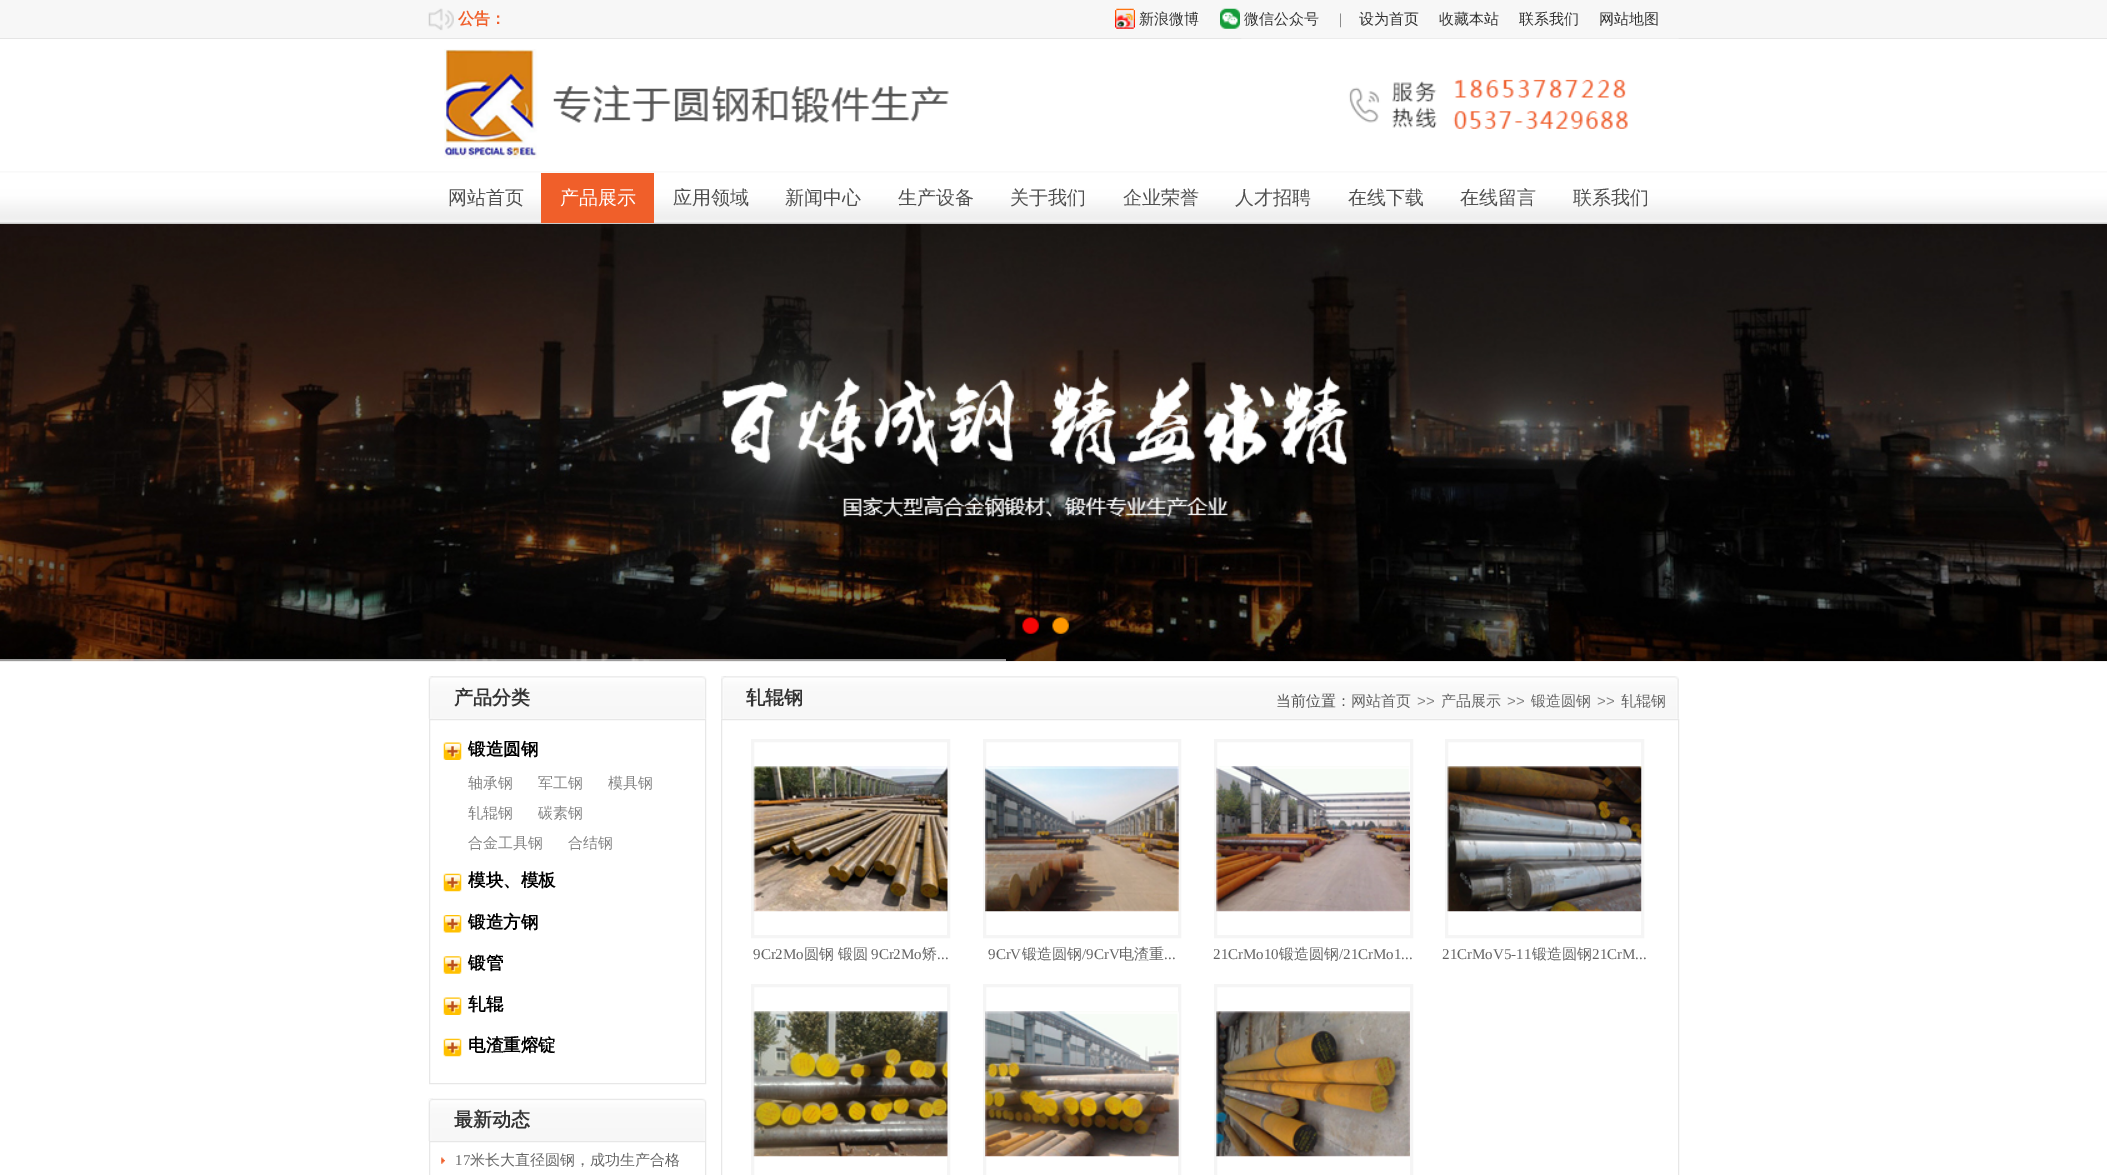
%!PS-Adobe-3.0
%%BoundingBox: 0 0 2107 1175
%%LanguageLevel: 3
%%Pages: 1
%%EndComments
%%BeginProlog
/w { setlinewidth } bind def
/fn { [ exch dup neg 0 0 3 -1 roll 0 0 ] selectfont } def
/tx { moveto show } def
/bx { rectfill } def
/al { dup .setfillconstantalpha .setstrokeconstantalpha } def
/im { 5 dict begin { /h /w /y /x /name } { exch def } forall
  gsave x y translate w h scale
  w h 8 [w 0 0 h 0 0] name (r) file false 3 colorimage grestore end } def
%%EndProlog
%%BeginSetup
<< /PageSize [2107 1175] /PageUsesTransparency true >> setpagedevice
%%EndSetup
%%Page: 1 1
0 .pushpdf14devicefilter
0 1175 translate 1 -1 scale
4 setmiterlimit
1 setgray
0 0 2107 1175 bx
0.969 setgray
0 0 2107 38 bx
0.898 setgray
0 38 2107 1 bx
(image0.raw) 428 8 26 23 im
/WenQuanYiZenHei-Bold 16 fn
0.941 0.373 0.165 setrgbcolor
(公告：) 458 24 tx
(image1.raw) 1115 8 20 21 im
/WenQuanYiZenHei-Medium 15 fn
0.2 setgray
(新浪微博) 1139 24 tx
(image2.raw) 1220 8 20 21 im
(微信公众号) 1244 24 tx
/LiberationSerif-Regular 15 fn
0.396 setgray
(|) 1339 24 tx
/WenQuanYiZenHei-Medium 15 fn
0.2 setgray
(设为首页) 1359 24 tx
(收藏本站) 1439 24 tx
(联系我们) 1519 24 tx
(网站地图) 1599 24 tx
(image3.raw) 444 49 505 110 im
(image4.raw) 1241 38 438 91 im
(image6.raw) 0 223 2107 439 im
(image5.raw) 0 171 2107 53 im
/WenQuanYiZenHei-Medium 19 fn
0.314 setgray
(网站首页) 448 204 tx
0.941 0.373 0.165 setrgbcolor
541 173 113 50 bx
1 setgray
(产品展示) 560 204 tx
0.314 setgray
(应用领域) 673 204 tx
(新闻中心) 785 204 tx
(生产设备) 898 204 tx
(关于我们) 1010 204 tx
(企业荣誉) 1123 204 tx
(人才招聘) 1235 204 tx
(在线下载) 1348 204 tx
(在线留言) 1460 204 tx
(联系我们) 1573 204 tx
0.6 al
1 setgray
0 659 1006 2 bx
1 al
(image7.raw) 1022 617 17 17 im
(image8.raw) 1052 617 17 17 im
(image9.raw) 429 676 278 43 im
(image10.raw) 428 676 5 43 im
/WenQuanYiZenHei-Bold 19 fn
0.2 setgray
(产品分类) 454 704 tx
0.906 setgray
429.5 719.5 276 364 rectstroke
(image11.raw) 443 742 19 18 im
/WenQuanYiZenHei-Bold 17.5 fn
0 setgray
(锻造圆钢) 468 755 tx
/WenQuanYiZenHei-Medium 15 fn
0.514 setgray
(轴承钢) 468 788 tx
(军工钢) 538 788 tx
(模具钢) 608 788 tx
(轧辊钢) 468 818 tx
(碳素钢) 538 818 tx
(合金工具钢) 468 848 tx
(合结钢) 568 848 tx
(image12.raw) 443 873 19 19 im
/WenQuanYiZenHei-Bold 17.5 fn
0 setgray
(模块、模板) 468 886 tx
(image13.raw) 443 915 19 18 im
(锻造方钢) 468 928 tx
(image14.raw) 443 956 19 18 im
(锻管) 468 969 tx
(image11.raw) 443 997 19 18 im
(轧辊) 468 1010 tx
(image12.raw) 443 1038 19 19 im
(电渣重熔锭) 468 1051 tx
(image15.raw) 428 1098 279 44 im
(image16.raw) 428 1098 5 44 im
/WenQuanYiZenHei-Bold 19 fn
0.2 setgray
(最新动态) 454 1126 tx
0.906 setgray
429.5 1141.5 276 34 rectstroke
(image17.raw) 441 1157 4 7 im
/LiberationSerif-Regular 15 fn
0.396 setgray
(17) 455 1165 tx
/WenQuanYiZenHei-Medium 15 fn
(米长大直径圆钢，成功生产合格) 470 1165 tx
(image18.raw) 721 676 958 43 im
(image19.raw) 721 676 5 43 im
/WenQuanYiZenHei-Bold 19 fn
0.2 setgray
(轧辊钢) 746 704 tx
/WenQuanYiZenHei-Medium 15 fn
0.314 setgray
(当前位置：) 1276 706 tx
0.396 setgray
(网站首页) 1351 706 tx
/LiberationSans-Regular 15 fn
0.514 setgray
(>>) 1417 706 tx
/WenQuanYiZenHei-Medium 15 fn
0.396 setgray
(产品展示) 1441 706 tx
/LiberationSans-Regular 15 fn
0.514 setgray
(>>) 1507 706 tx
/WenQuanYiZenHei-Medium 15 fn
0.396 setgray
(锻造圆钢) 1531 706 tx
/LiberationSans-Regular 15 fn
0.514 setgray
(>>) 1597 706 tx
/WenQuanYiZenHei-Medium 15 fn
0.396 setgray
(轧辊钢) 1621 706 tx
0.906 setgray
721.5 719.5 957 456 rectstroke
0.961 setgray
3 w
752.5 740.5 196 196 rectstroke
(image20.raw) 753 766 195 146 im
/LiberationSerif-Regular 15 fn
0.396 setgray
(9Cr2Mo) 753 959 tx
/WenQuanYiZenHei-Medium 15 fn
(圆钢 锻圆) 804 959 tx
/LiberationSerif-Regular 15 fn
(9Cr2Mo) 871 959 tx
/WenQuanYiZenHei-Medium 15 fn
(矫) 922 959 tx
/LiberationSerif-Regular 15 fn
(...) 937 959 tx
0.961 setgray
984.5 740.5 195 196 rectstroke
(image21.raw) 985 766 194 146 im
0.396 setgray
(9CrV) 988 959 tx
/WenQuanYiZenHei-Medium 15 fn
(锻造圆钢) 1022 959 tx
/LiberationSerif-Regular 15 fn
(/9CrV) 1082 959 tx
/WenQuanYiZenHei-Medium 15 fn
(电渣重) 1119 959 tx
/LiberationSerif-Regular 15 fn
(...) 1164 959 tx
0.961 setgray
1215.5 740.5 196 196 rectstroke
(image22.raw) 1216 766 194 146 im
0.396 setgray
(21CrMo10) 1213 959 tx
/WenQuanYiZenHei-Medium 15 fn
(锻造圆钢) 1279 959 tx
/LiberationSerif-Regular 15 fn
(/21CrMo1...) 1339 959 tx
0.961 setgray
1446.5 740.5 196 196 rectstroke
(image23.raw) 1447 766 195 146 im
0.396 setgray
(21CrMoV5-11) 1442 959 tx
/WenQuanYiZenHei-Medium 15 fn
(锻造圆钢) 1532 959 tx
/LiberationSerif-Regular 15 fn
(21CrM...) 1592 959 tx
0.961 setgray
752.5 985.5 196 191 rectstroke
(image24.raw) 753 1011 195 146 im
984.5 985.5 195 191 rectstroke
(image25.raw) 985 1011 194 146 im
1215.5 985.5 196 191 rectstroke
(image26.raw) 1216 1011 194 146 im
.poppdf14devicefilter showpage
%%EOF
